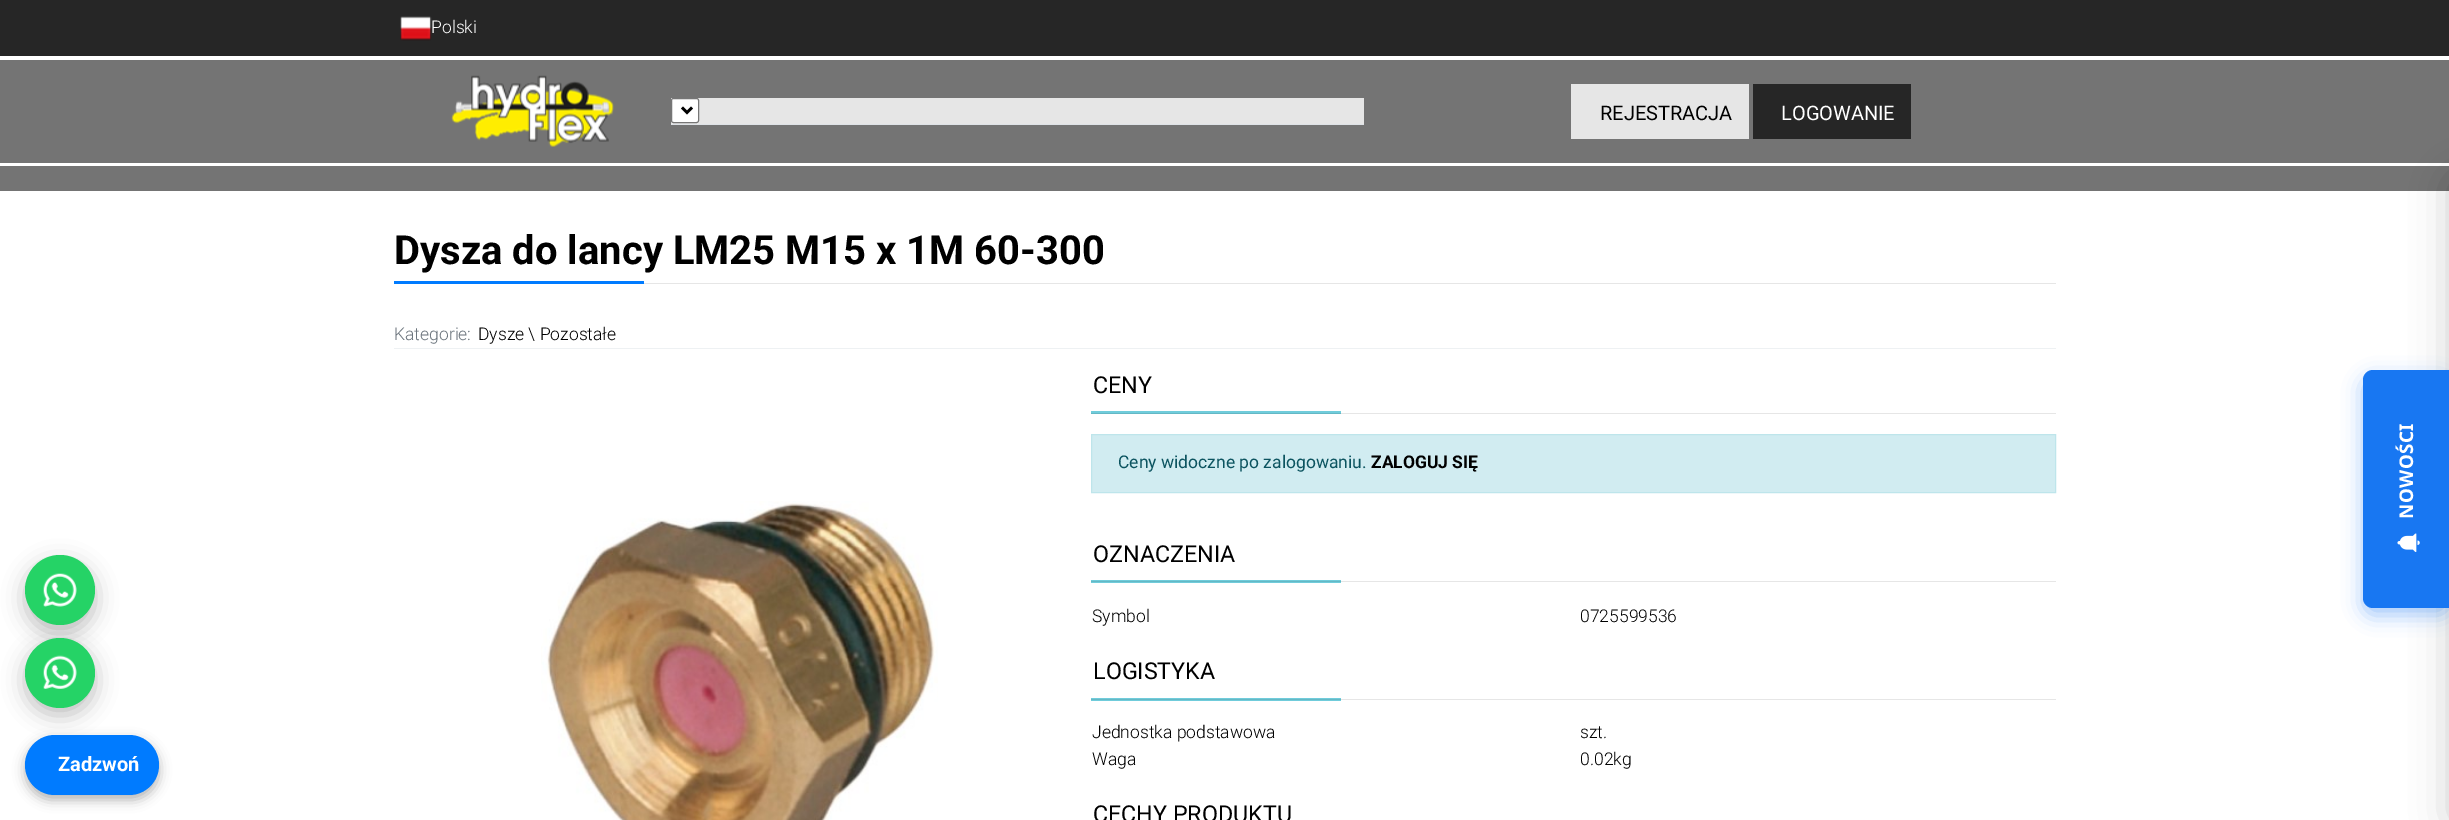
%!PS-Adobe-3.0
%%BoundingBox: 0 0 2449 820
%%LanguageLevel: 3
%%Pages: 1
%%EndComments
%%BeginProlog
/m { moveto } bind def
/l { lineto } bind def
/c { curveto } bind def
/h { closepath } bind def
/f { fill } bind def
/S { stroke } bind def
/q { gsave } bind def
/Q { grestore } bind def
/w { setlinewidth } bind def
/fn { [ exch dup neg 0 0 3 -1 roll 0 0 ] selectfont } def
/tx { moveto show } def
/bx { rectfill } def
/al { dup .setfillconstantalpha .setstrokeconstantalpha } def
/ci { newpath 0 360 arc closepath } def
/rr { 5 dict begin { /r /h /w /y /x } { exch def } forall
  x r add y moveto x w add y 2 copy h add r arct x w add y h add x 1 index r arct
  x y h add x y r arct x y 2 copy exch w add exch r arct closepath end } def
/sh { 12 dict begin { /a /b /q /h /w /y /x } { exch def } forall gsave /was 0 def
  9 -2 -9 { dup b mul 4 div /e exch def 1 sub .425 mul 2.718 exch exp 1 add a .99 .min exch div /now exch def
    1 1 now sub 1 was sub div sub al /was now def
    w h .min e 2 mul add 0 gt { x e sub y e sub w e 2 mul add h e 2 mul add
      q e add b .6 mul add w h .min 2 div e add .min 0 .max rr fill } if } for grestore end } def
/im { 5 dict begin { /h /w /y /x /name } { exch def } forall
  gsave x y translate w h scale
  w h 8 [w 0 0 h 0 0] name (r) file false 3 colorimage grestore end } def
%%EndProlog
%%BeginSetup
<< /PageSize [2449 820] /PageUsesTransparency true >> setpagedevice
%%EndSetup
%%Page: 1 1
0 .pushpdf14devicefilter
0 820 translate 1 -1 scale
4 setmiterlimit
1 setgray
0 0 2449 820 bx
0.902 setgray
1341 699 715 1 bx
1341 581 715 1 bx
1341 413 715 1 bx
0.149 setgray
0 0 2449 56 bx
(image0.raw) 400 16 32 25 im
/Roboto-Light 17.5 fn
1 setgray
(Polski) 431 33 tx
0.455 setgray
0 60 2449 103 bx
(image1.raw) 451 75 163 72 im
0.902 setgray
671 98 693 26 bx
0.871 0.886 0.902 setrgbcolor
671 124 693 1 bx
1 setgray
671.5 98.5 27 24 2 rr q f Q
0.463 setgray
S
0 setgray
2.5 w
682 107.5 m 687 112.5 l 692 107.5 l S
0.902 setgray
1571 84 178 55 bx
/Roboto-Regular 20 fn
0 setgray
(REJESTRACJA) 1600 120 tx
0.149 setgray
1753 84 158 55 bx
1 setgray
(LOGOWANIE) 1781 120 tx
0.455 setgray
0 166 2449 25 bx
0.902 setgray
644 283 1412 1 bx
/Roboto-Bold 40 fn
0 setgray
(Dysza do lancy LM25 M15 x 1M 60-300) 394 264 tx
0 0.482 1 setrgbcolor
394 281 250 3 bx
0.933 0.945 0.953 setrgbcolor
394 348 1662 1 bx
/Roboto-Light 17.5 fn
0.424 0.459 0.49 setrgbcolor
(Kategorie:) 394 340 tx
0 setgray
(Dysze \\ Pozostałe) 478 340 tx
(image2.raw) 541 501 397 319 im
0.439 0.8 0.859 setrgbcolor
1091 411 250 2 bx
0.396 0.722 0.773 setrgbcolor
1091 413 250 1 bx
/Roboto-Regular 23.25 fn
0 setgray
(CENY) 1093 393 tx
0.82 0.925 0.945 setrgbcolor
1091.5 434.5 m 2055.5 434.5 l 2055.5 492.5 l 1091.5 492.5 l h q f Q
0.745 0.898 0.922 setrgbcolor
1 w
S
/Roboto-Regular 17.5 fn
0.047 0.329 0.376 setrgbcolor
(Ceny widoczne po zalogowaniu.) 1118 468 tx
/Roboto-Bold 17.5 fn
0 setgray
(ZALOGUJ SIĘ) 1371 468 tx
0.439 0.8 0.859 setrgbcolor
1091 580 250 3 bx
0.396 0.722 0.773 setrgbcolor
1091 581 250 1 bx
/Roboto-Regular 23.25 fn
0 setgray
(OZNACZENIA) 1093 562 tx
/Roboto-Light 17.5 fn
(Symbol) 1092 622 tx
(0725599536) 1580 622 tx
0.439 0.8 0.859 setrgbcolor
1091 698 250 3 bx
0.396 0.722 0.773 setrgbcolor
1091 699 250 1 bx
/Roboto-Regular 23.25 fn
0 setgray
(LOGISTYKA) 1093 679 tx
/Roboto-Light 17.5 fn
(Jednostka podstawowa) 1092 738 tx
(szt.) 1580 738 tx
(Waga) 1092 765 tx
(0.02kg) 1580 765 tx
/Roboto-Regular 23.25 fn
(CECHY PRODUKTU) 1093 822 tx
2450 176 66 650 10 19 0.2 sh
0.094 0.467 0.949 setrgbcolor
2363 378 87 237 10 10 0.4 sh
2373 370 m 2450 370 l 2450 608 l 2373 608 l 2367.5 608 2363 603.5 2363 598 c 2363 380 l 2363 374.5 2367.5 370 2373 370 c h f
/NotoSans-Bold 18.75 fn
1 setgray
q 2413 519 translate -90 rotate 0 0 m 0.5 0 (NOWOŚCI) ashow Q
(image3.raw) 2397 533 23 19 im
0 setgray
25 563 70 70 35 11 0.25 sh
0.145 0.827 0.4 setrgbcolor
60 590 35 ci f
(image4.raw) 43 573 34 34 im
0 setgray
25 740 134 60 30 6 0.3 sh
0 0.482 1 setrgbcolor
25 735 134 60 30 rr f
0 setgray
25 645 70 70 35 11 0.25 sh
0.145 0.827 0.4 setrgbcolor
60 673 35 ci f
(image5.raw) 43 655 34 34 im
/Roboto-Bold 20 fn
1 setgray
(Zadzwoń) 58 771 tx
.poppdf14devicefilter showpage
%%EOF
